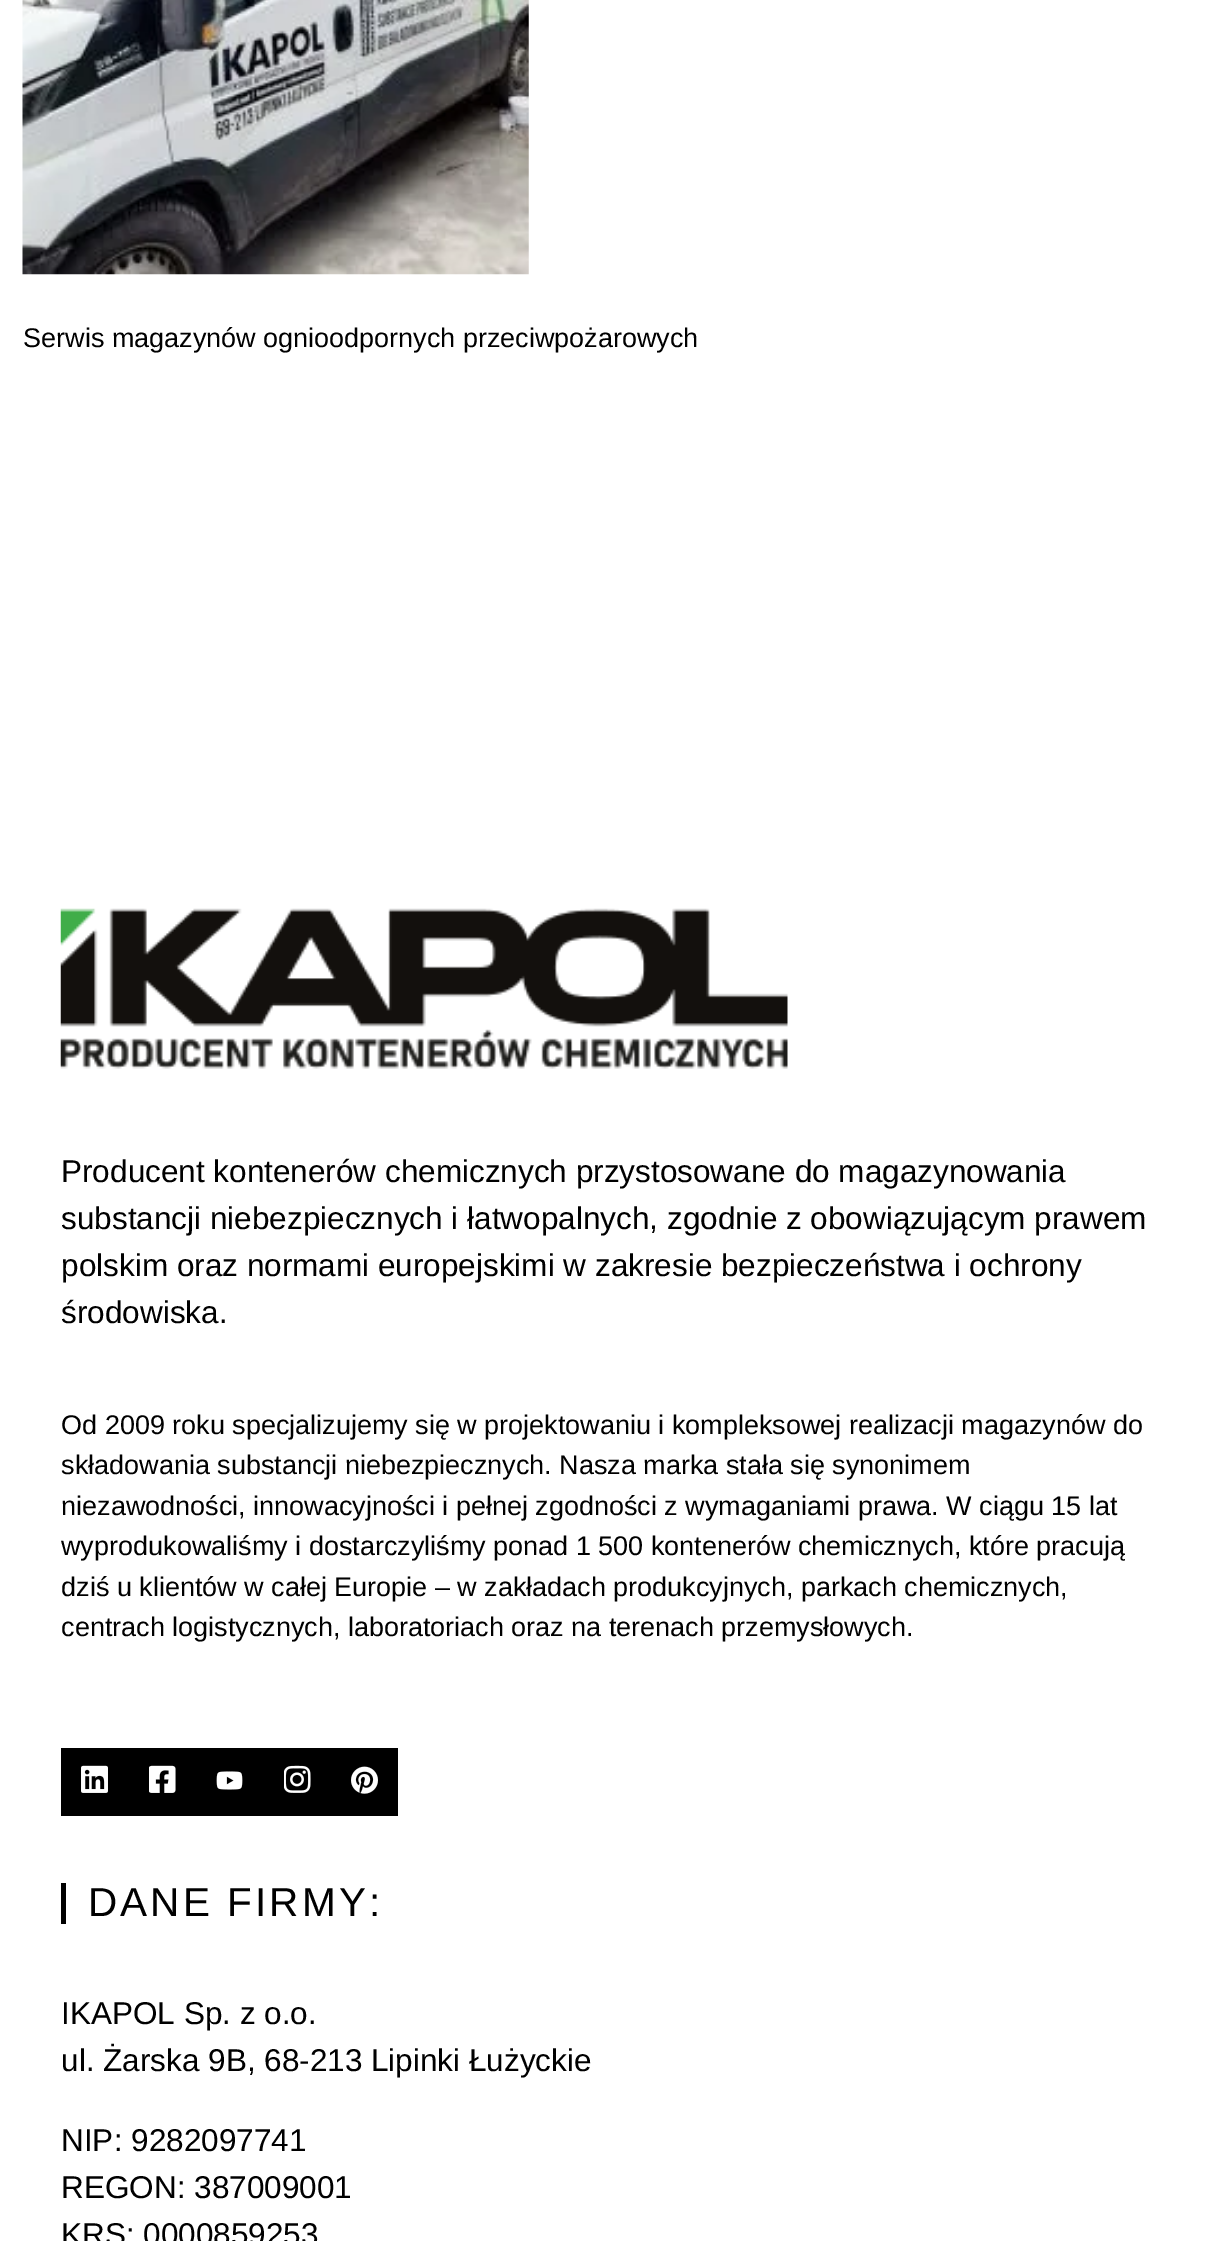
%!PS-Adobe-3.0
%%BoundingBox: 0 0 1219 2241
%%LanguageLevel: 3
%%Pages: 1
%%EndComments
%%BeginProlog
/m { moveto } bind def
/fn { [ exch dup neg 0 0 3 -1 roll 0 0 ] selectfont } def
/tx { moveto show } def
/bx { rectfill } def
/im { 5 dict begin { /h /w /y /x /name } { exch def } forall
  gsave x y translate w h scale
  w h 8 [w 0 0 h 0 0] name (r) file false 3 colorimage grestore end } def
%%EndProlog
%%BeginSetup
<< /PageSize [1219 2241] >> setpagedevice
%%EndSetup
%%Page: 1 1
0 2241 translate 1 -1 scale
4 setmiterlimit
1 setgray
0 0 1219 2241 bx
(image0.raw) 22 0 507 275 im
/LiberationSans-Regular 27 fn
0 setgray
(Serwis magazynów ognioodpornych przeciwpożarowych) 23 347 tx
(image1.raw) 60 908 728 161 im
/LiberationSans-Regular 31.5 fn
(Producent kontenerów chemicznych przystosowane do magazynowania) 61 1182 tx
(substancji niebezpiecznych i łatwopalnych, zgodnie z obowiązującym prawem) 61 1229 tx
(polskim oraz normami europejskimi w zakresie bezpieczeństwa i ochrony) 61 1276 tx
(środowiska.) 61 1323 tx
/LiberationSans-Regular 27 fn
(Od 2009 roku specjalizujemy się w projektowaniu i kompleksowej realizacji magazynów do) 61 1434 tx
(składowania substancji niebezpiecznych. Nasza marka stała się synonimem) 61 1474 tx
(niezawodności, innowacyjności i pełnej zgodności z wymaganiami prawa. W ciągu 15 lat) 61 1515 tx
(wyprodukowaliśmy i dostarczyliśmy ponad 1 500 kontenerów chemicznych, które pracują) 61 1555 tx
(dziś u klientów w całej Europie – w zakładach produkcyjnych, parkach chemicznych,) 61 1596 tx
(centrach logistycznych, laboratoriach oraz na terenach przemysłowych.) 61 1636 tx
61 1748 337 68 bx
(image2.raw) 81 1765 27 28 im
(image3.raw) 149 1765 27 28 im
(image4.raw) 216 1771 27 19 im
(image5.raw) 284 1765 27 28 im
(image6.raw) 351 1766 27 28 im
61 1883 5 41 bx
/LiberationSans-Regular 40.5 fn
88 1916 m 3.1 0 (DANE FIRMY:) ashow
/LiberationSans-Regular 31.5 fn
(IKAPOL Sp. z o.o.) 61 2024 tx
(ul. Żarska 9B, 68-213 Lipinki Łużyckie) 61 2071 tx
(NIP: 9282097741) 61 2151 tx
(REGON: 387009001) 61 2198 tx
(KRS: 0000859253) 61 2245 tx
showpage
%%EOF
